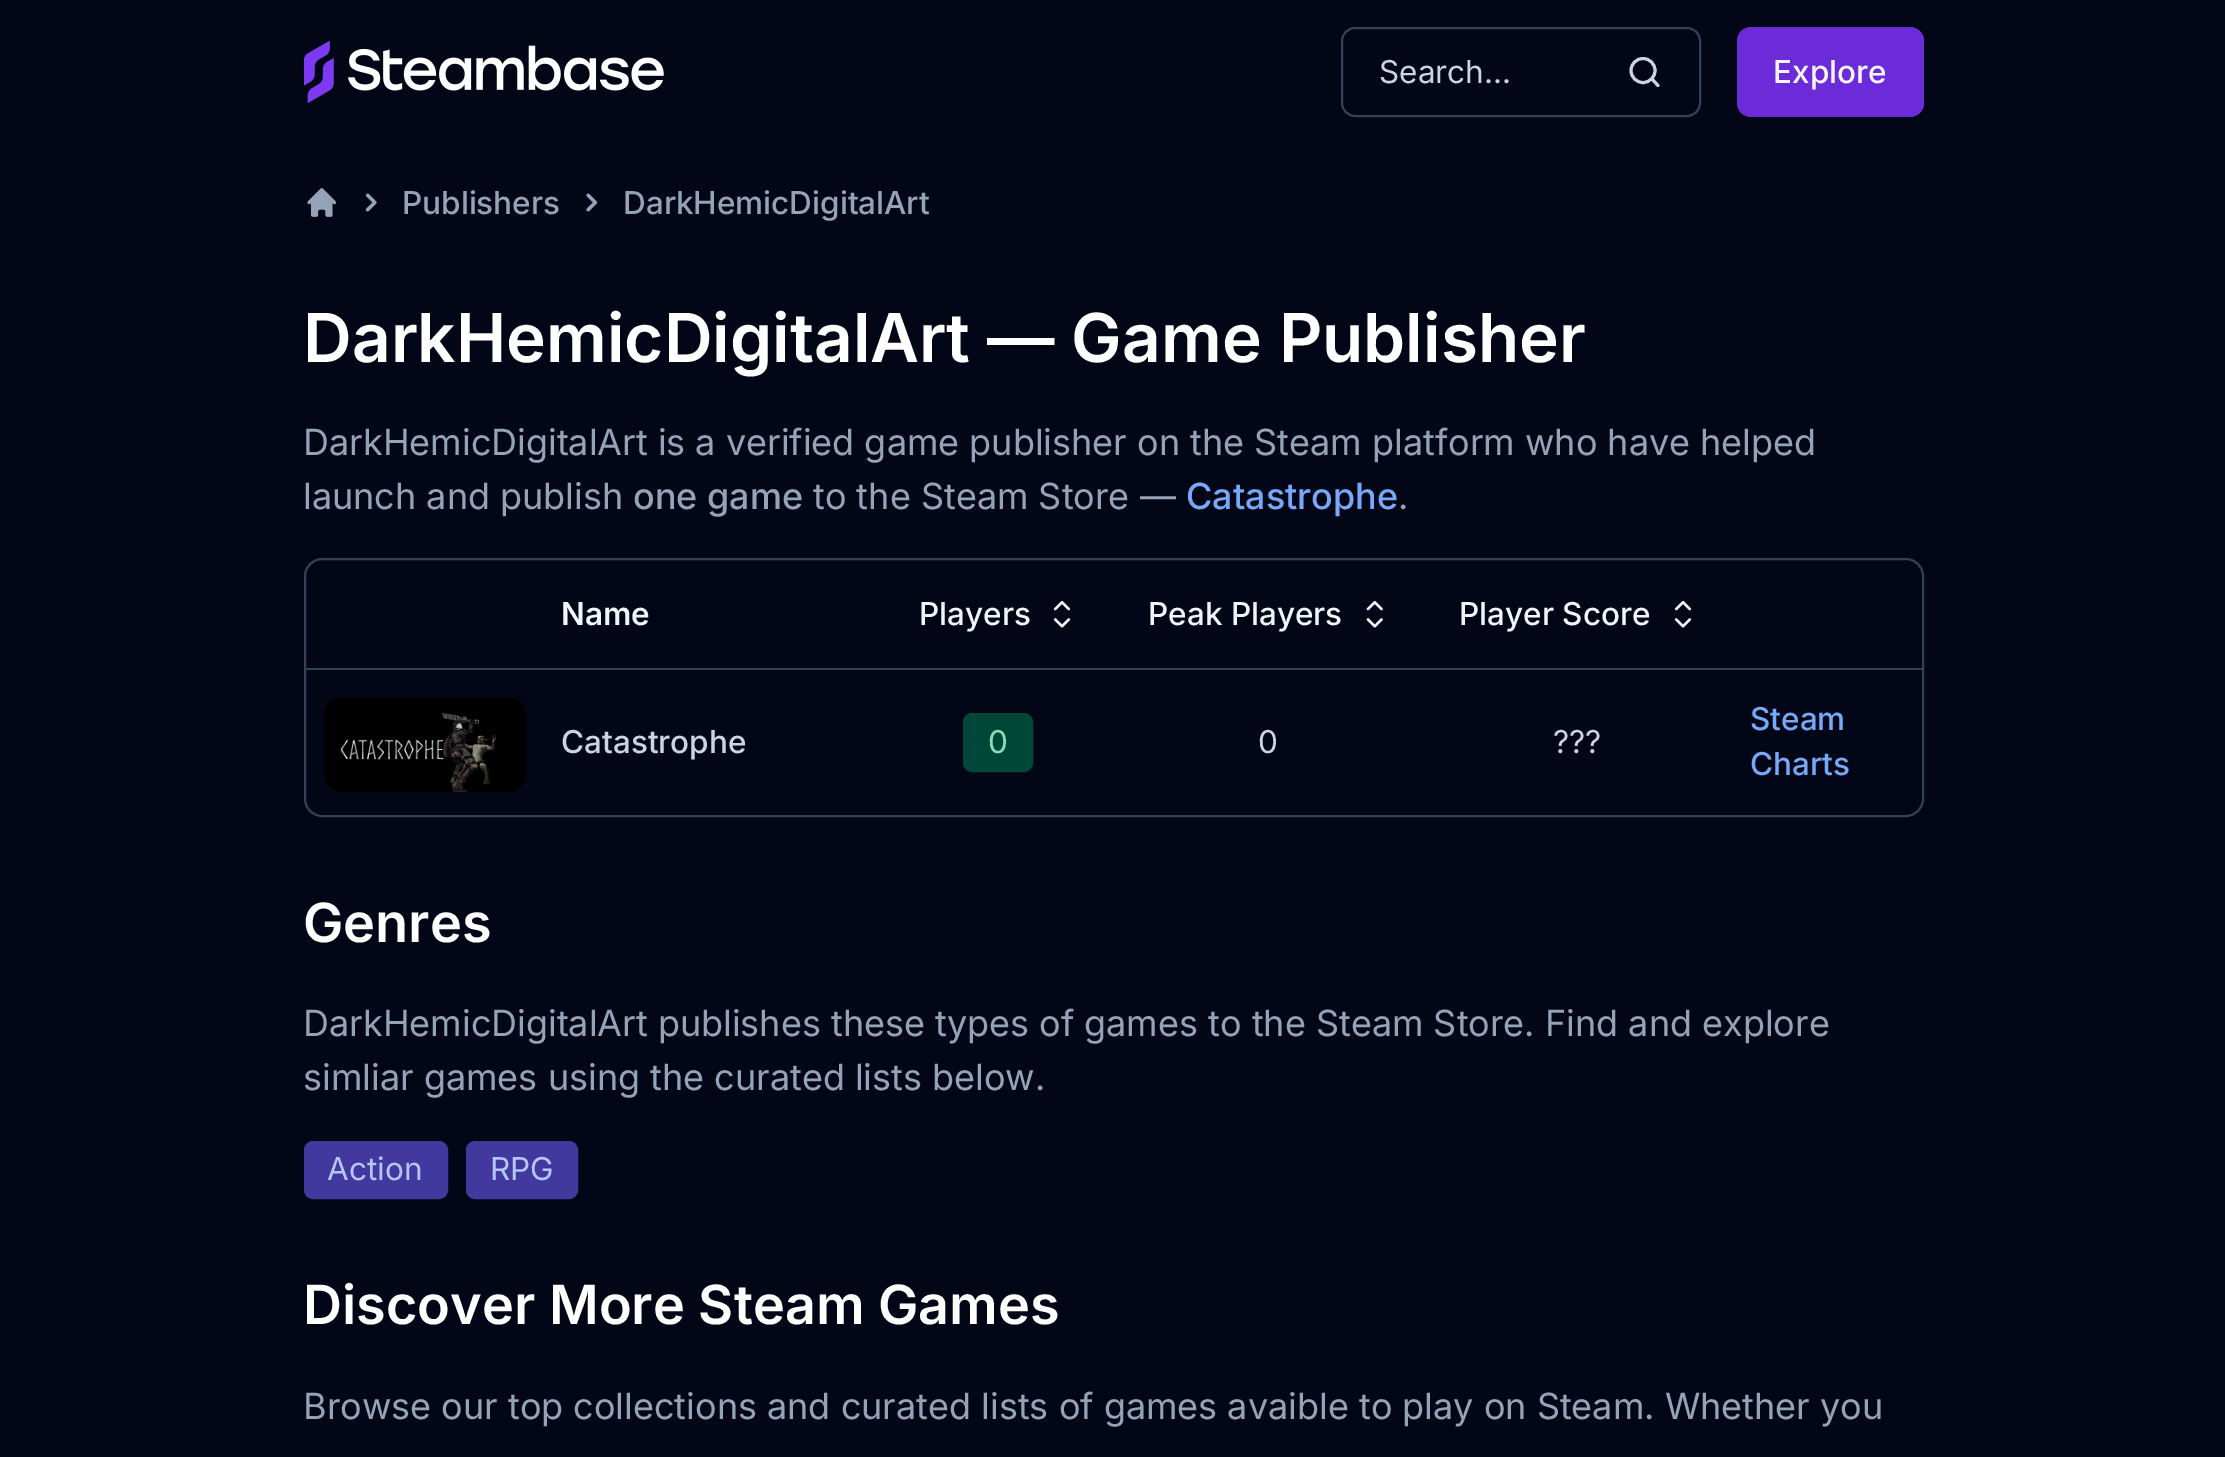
%!PS-Adobe-3.0
%%BoundingBox: 0 0 2225 1457
%%LanguageLevel: 3
%%Pages: 1
%%EndComments
%%BeginProlog
/m { moveto } bind def
/l { lineto } bind def
/f { fill } bind def
/S { stroke } bind def
/q { gsave } bind def
/Q { grestore } bind def
/w { setlinewidth } bind def
/fn { [ exch dup neg 0 0 3 -1 roll 0 0 ] selectfont } def
/tx { moveto show } def
/bx { rectfill } def
/ci { newpath 0 360 arc closepath } def
/rr { 5 dict begin { /r /h /w /y /x } { exch def } forall
  x r add y moveto x w add y 2 copy h add r arct x w add y h add x 1 index r arct
  x y h add x y r arct x y 2 copy exch w add exch r arct closepath end } def
/im { 5 dict begin { /h /w /y /x /name } { exch def } forall
  gsave x y translate w h scale
  w h 8 [w 0 0 h 0 0] name (r) file false 3 colorimage grestore end } def
%%EndProlog
%%BeginSetup
<< /PageSize [2225 1457] >> setpagedevice
%%EndSetup
%%Page: 1 1
0 1457 translate 1 -1 scale
4 setmiterlimit
0.008 0.024 0.09 setrgbcolor
0 0 2225 1457 bx
(image0.raw) 304 41 360 63 im
0.2 0.255 0.333 setrgbcolor
2 w
1342 28 358 88 13 rr S
/Inter-Regular 31.5 fn
0.796 0.835 0.882 setrgbcolor
(Search...) 1379 83 tx
3 w
1643 70.5 12 ci S
1 setlinecap
1 setlinejoin
1658 85.5 m 1652 79 l S
0.424 0.169 0.851 setrgbcolor
1737 27 187 90 14 rr f
/Inter-Medium 31.5 fn
0.965 0.961 1 setrgbcolor
(Explore) 1773 83 tx
(image1.raw) 307 188 30 29 im
(image2.raw) 365 193 12 19 im
0.58 0.639 0.722 setrgbcolor
(Publishers) 402 214 tx
(image3.raw) 586 193 12 19 im
(DarkHemicDigitalArt) 623 214 tx
/Inter-SemiBold 67.5 fn
1 setgray
(DarkHemicDigitalArt — Game Publisher) 303 362 tx
/Inter-Regular 36 fn
0.58 0.639 0.722 setrgbcolor
(DarkHemicDigitalArt is a verified game publisher on the Steam platform who have helped) 303 455 tx
(launch and publish) 303 509 tx
/Inter-Medium 36 fn
(one game) 633 509 tx
/Inter-Regular 36 fn
(to the Steam Store —) 813 509 tx
/Inter-Medium 36 fn
0.463 0.663 0.98 setrgbcolor
(Catastrophe) 1186 509 tx
/Inter-Regular 36 fn
0.58 0.639 0.722 setrgbcolor
(.) 1398 509 tx
0.2 0.255 0.333 setrgbcolor
2 w
0 setlinecap
0 setlinejoin
305 559 1618 257 17 rr S
306 668 1616 2 bx
/Inter-SemiBold 31.5 fn
0.945 0.961 0.976 setrgbcolor
(Name) 561 625 tx
/Inter-Medium 31.5 fn
(Players) 919 625 tx
(image4.raw) 1053 600 18 28 im
(Peak Players) 1148 625 tx
(image5.raw) 1366 600 17 28 im
(Player Score) 1459 625 tx
(image4.raw) 1674 600 18 28 im
(image6.raw) 324 697 203 95 im
0.796 0.835 0.882 setrgbcolor
(Catastrophe) 561 753 tx
0.004 0.278 0.216 setrgbcolor
964 714 68 57 8 rr q f Q
S
/Inter-Regular 31.5 fn
0.518 0.882 0.737 setrgbcolor
(0) 988 753 tx
0.796 0.835 0.882 setrgbcolor
(0) 1258 753 tx
(???) 1553 753 tx
/Inter-Medium 31.5 fn
0.463 0.663 0.98 setrgbcolor
(Steam) 1750 730 tx
(Charts) 1750 775 tx
/Inter-SemiBold 54 fn
1 setgray
(Genres) 303 942 tx
/Inter-Regular 36 fn
0.58 0.639 0.722 setrgbcolor
(DarkHemicDigitalArt publishes these types of games to the Steam Store. Find and explore) 303 1036 tx
(simliar games using the curated lists below.) 303 1090 tx
0.259 0.22 0.616 setrgbcolor
305 1142 142 56 8 rr q f Q
S
/Inter-Regular 31.5 fn
0.706 0.776 0.988 setrgbcolor
(Action) 327 1180 tx
0.259 0.22 0.616 setrgbcolor
467 1142 110 56 8 rr q f Q
S
0.706 0.776 0.988 setrgbcolor
(RPG) 490 1180 tx
/Inter-SemiBold 54 fn
1 setgray
(Discover More Steam Games) 303 1324 tx
/Inter-Regular 36 fn
0.58 0.639 0.722 setrgbcolor
(Browse our top collections and curated lists of games avaible to play on Steam. Whether you) 303 1419 tx
showpage
%%EOF
